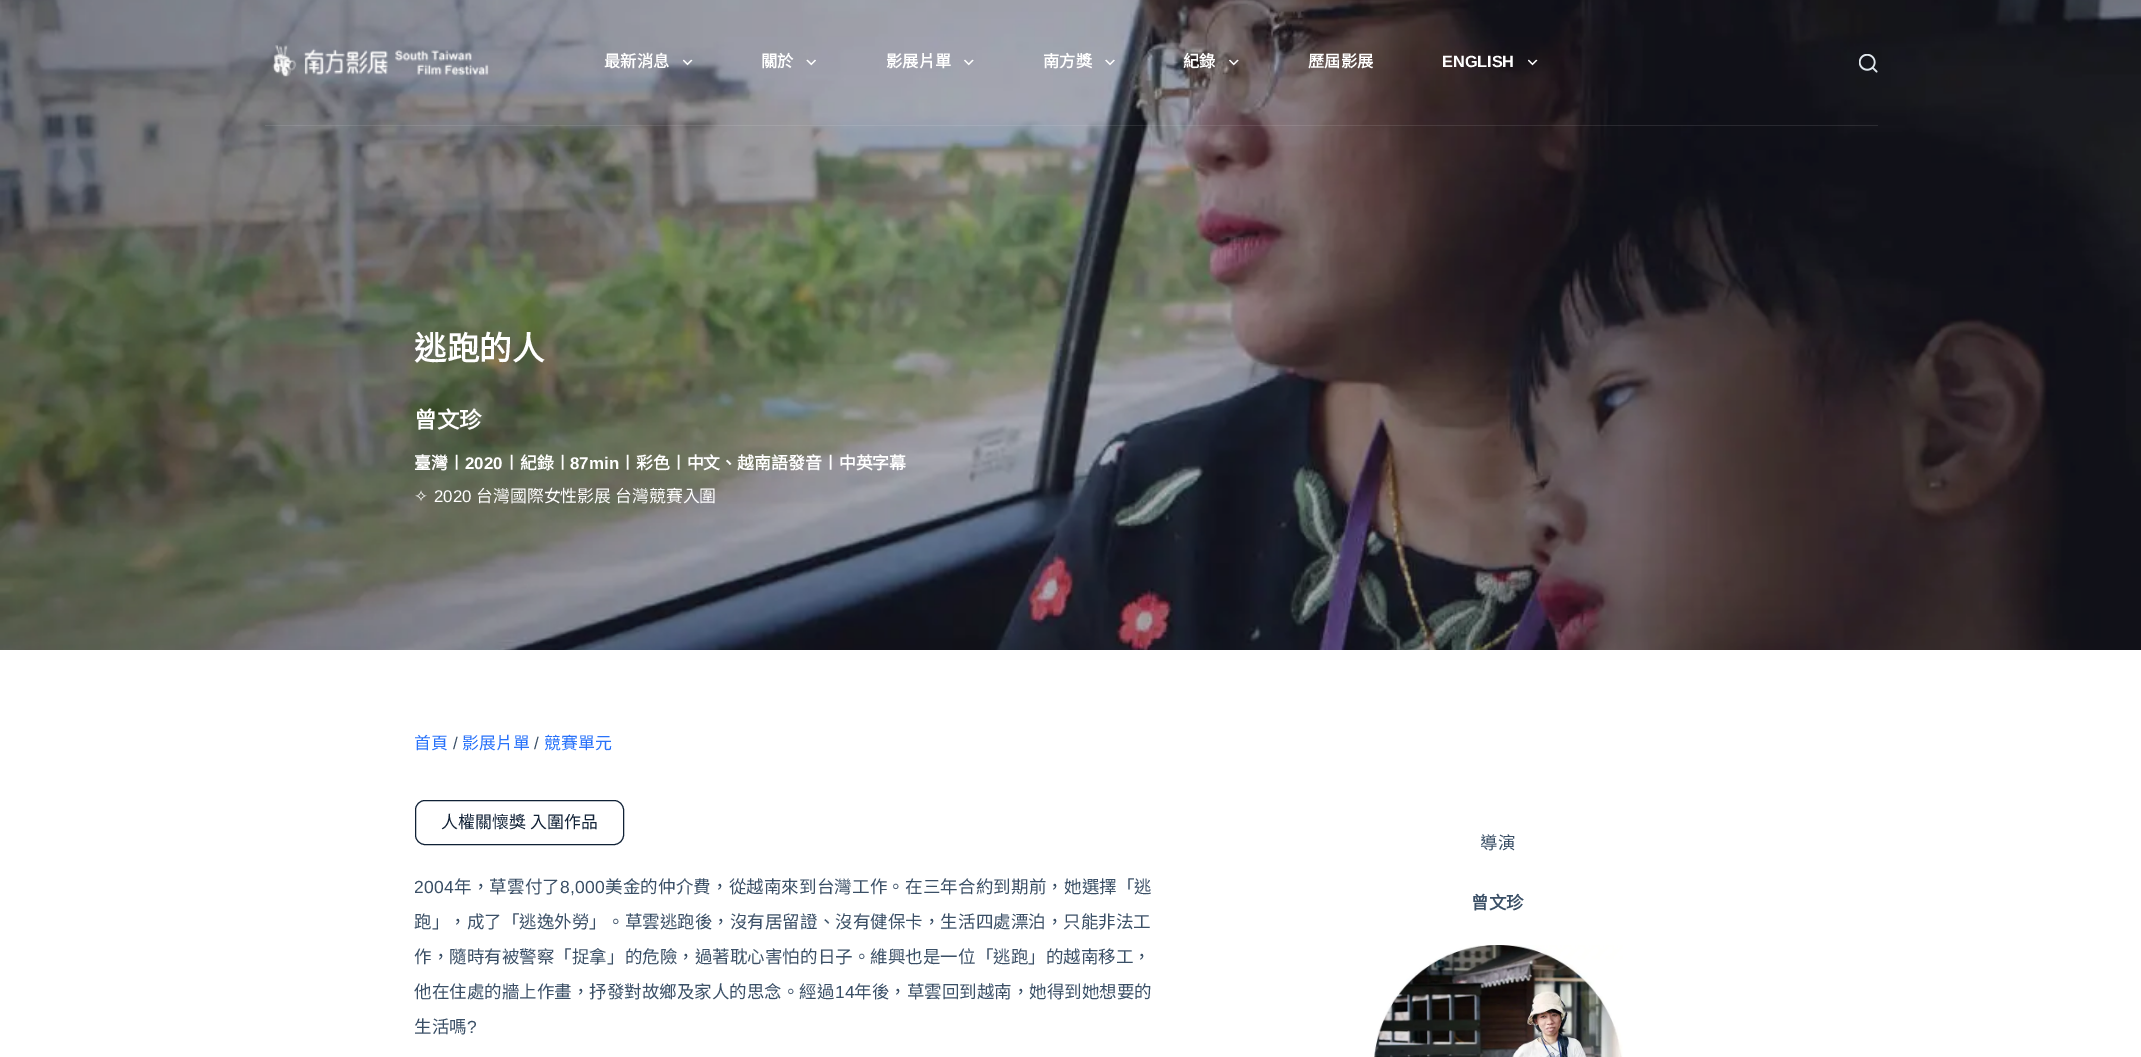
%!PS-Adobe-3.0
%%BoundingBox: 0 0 2141 1057
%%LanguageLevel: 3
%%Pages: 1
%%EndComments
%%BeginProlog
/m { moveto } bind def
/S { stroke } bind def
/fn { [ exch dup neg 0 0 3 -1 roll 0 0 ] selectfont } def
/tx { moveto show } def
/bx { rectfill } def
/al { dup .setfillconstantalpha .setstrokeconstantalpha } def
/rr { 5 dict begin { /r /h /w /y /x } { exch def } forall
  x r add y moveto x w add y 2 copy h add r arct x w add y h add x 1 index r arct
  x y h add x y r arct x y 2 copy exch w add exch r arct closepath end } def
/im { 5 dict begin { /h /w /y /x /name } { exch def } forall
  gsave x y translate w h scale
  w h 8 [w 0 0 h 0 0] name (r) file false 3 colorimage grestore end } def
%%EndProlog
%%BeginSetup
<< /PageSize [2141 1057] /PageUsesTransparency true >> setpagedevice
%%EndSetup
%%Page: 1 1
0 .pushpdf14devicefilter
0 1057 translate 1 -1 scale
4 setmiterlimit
1 setgray
0 0 2141 1057 bx
(image8.raw) 0 0 2141 650 im
0.1 al
265 125 1613 1 bx
1 al
(image0.raw) 272 45 217 32 im
/NotoSansCJKTC-Bold 16.25 fn
(最新消息) 604 67 tx
(image1.raw) 683 59 10 7 im
(關於) 761 67 tx
(image2.raw) 806 59 10 7 im
(影展片單) 886 67 tx
(image3.raw) 964 59 10 7 im
(南方獎) 1043 67 tx
(image4.raw) 1105 59 10 7 im
(紀錄) 1183 67 tx
(image5.raw) 1229 59 10 7 im
(歷屆影展) 1308 67 tx
/LiberationSans-Bold 16.25 fn
(ENGLISH) 1442 67 tx
(image6.raw) 1528 59 10 7 im
(image7.raw) 1859 54 19 19 im
/NotoSansCJKTC-Bold 32.5 fn
(逃跑的人) 414 360 tx
/NotoSansCJKTC-Bold 22.5 fn
(曾文珍) 414 428 tx
/NotoSansCJKTC-Bold 16.9 fn
(臺灣〡) 414 469 tx
/LiberationSans-Bold 16.9 fn
(2020) 465 469 tx
/NotoSansCJKTC-Bold 16.9 fn
(〡紀錄〡) 503 469 tx
/LiberationSans-Bold 16.9 fn
(87min) 570 469 tx
/NotoSansCJKTC-Bold 16.9 fn
(〡彩色〡中文、越南語發音〡中英字幕) 619 469 tx
/DejaVuSans-Regular 16.9 fn
(✧) 414 502 tx
/LiberationSans-Regular 16.9 fn
(2020) 434 502 tx
/NotoSansCJKTC-Regular 16.9 fn
(台灣國際女性影展 台灣競賽入圍) 476 502 tx
0.157 0.447 0.98 setrgbcolor
(首頁) 414 749 tx
/LiberationSans-Regular 16.9 fn
0.227 0.31 0.4 setrgbcolor
(/) 453 749 tx
/NotoSansCJKTC-Regular 16.9 fn
0.157 0.447 0.98 setrgbcolor
(影展片單) 462 749 tx
/LiberationSans-Regular 16.9 fn
0.227 0.31 0.4 setrgbcolor
(/) 534 749 tx
/NotoSansCJKTC-Regular 16.9 fn
0.157 0.447 0.98 setrgbcolor
(競賽單元) 544 749 tx
0.063 0.129 0.212 setrgbcolor
415.5 800.5 208 44 9.5 rr S
441 828 m 1 0 32 (人權關懷獎 入圍作品) widthshow
/LiberationSans-Regular 17.5 fn
0.227 0.31 0.4 setrgbcolor
414 893 m 0.15 0 (2004) ashow
/NotoSansCJKTC-Regular 17.5 fn
454 893 m 0.15 0 (年，草雲付了) ashow
/LiberationSans-Regular 17.5 fn
560 893 m 0.15 0 (8,000) ashow
/NotoSansCJKTC-Regular 17.5 fn
605 893 m 0.15 0 (美金的仲介費，從越南來到台灣工作。在三年合約到期前，她選擇「逃) ashow
414 928 m 0.05 0 (跑」，成了「逃逸外勞」。草雲逃跑後，沒有居留證、沒有健保卡，生活四處漂泊，只能非法工) ashow
414 963 m 0.05 0 (作，隨時有被警察「捉拿」的危險，過著耽心害怕的日子。維興也是一位「逃跑」的越南移工，) ashow
(他在住處的牆上作畫，抒發對故鄉及家人的思念。經過) 414 998 tx
/LiberationSans-Regular 17.5 fn
(14) 835 998 tx
/NotoSansCJKTC-Regular 17.5 fn
(年後，草雲回到越南，她得到她想要的) 854 998 tx
(生活嗎) 414 1033 tx
/LiberationSans-Regular 17.5 fn
(?) 467 1033 tx
/NotoSansCJKTC-Regular 17.5 fn
(導演) 1480 849 tx
/NotoSansCJKTC-Bold 17.5 fn
(曾文珍) 1471 909 tx
(image9.raw) 1374 945 249 112 im
.poppdf14devicefilter showpage
%%EOF
